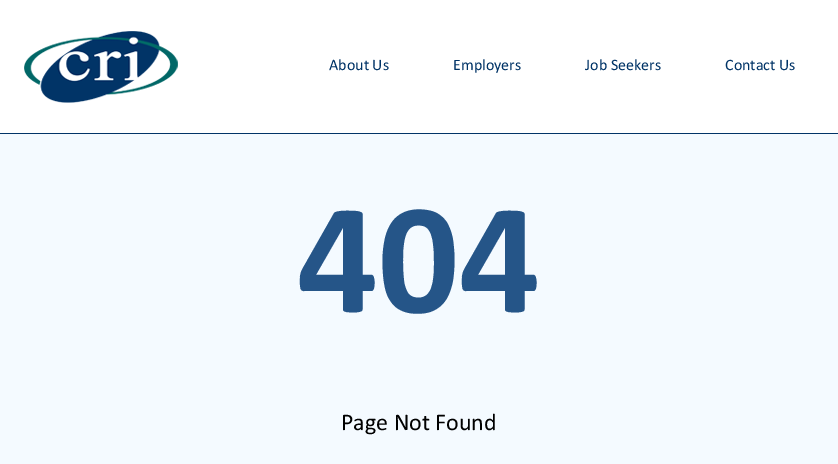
%!PS-Adobe-3.0
%%BoundingBox: 0 0 838 464
%%LanguageLevel: 3
%%Pages: 1
%%EndComments
%%BeginProlog
/fn { [ exch dup neg 0 0 3 -1 roll 0 0 ] selectfont } def
/tx { moveto show } def
/bx { rectfill } def
/im { 5 dict begin { /h /w /y /x /name } { exch def } forall
  gsave x y translate w h scale
  w h 8 [w 0 0 h 0 0] name (r) file false 3 colorimage grestore end } def
%%EndProlog
%%BeginSetup
<< /PageSize [838 464] >> setpagedevice
%%EndSetup
%%Page: 1 1
0 464 translate 1 -1 scale
4 setmiterlimit
0.957 0.98 1 setrgbcolor
0 0 838 464 bx
1 setgray
0 0 838 133 bx
0.004 0.204 0.404 setrgbcolor
0 133 838 1 bx
(image0.raw) 24 31 154 72 im
/Calibri-Regular 16 fn
(About Us) 329 70 tx
(Employers) 453 70 tx
(Job Seekers) 585 70 tx
(Contact Us) 725 70 tx
/Calibri-Bold 160 fn
0.145 0.333 0.533 setrgbcolor
(404) 297 312 tx
/Calibri-Regular 24 fn
0 setgray
(Page Not Found) 341 430 tx
showpage
%%EOF
